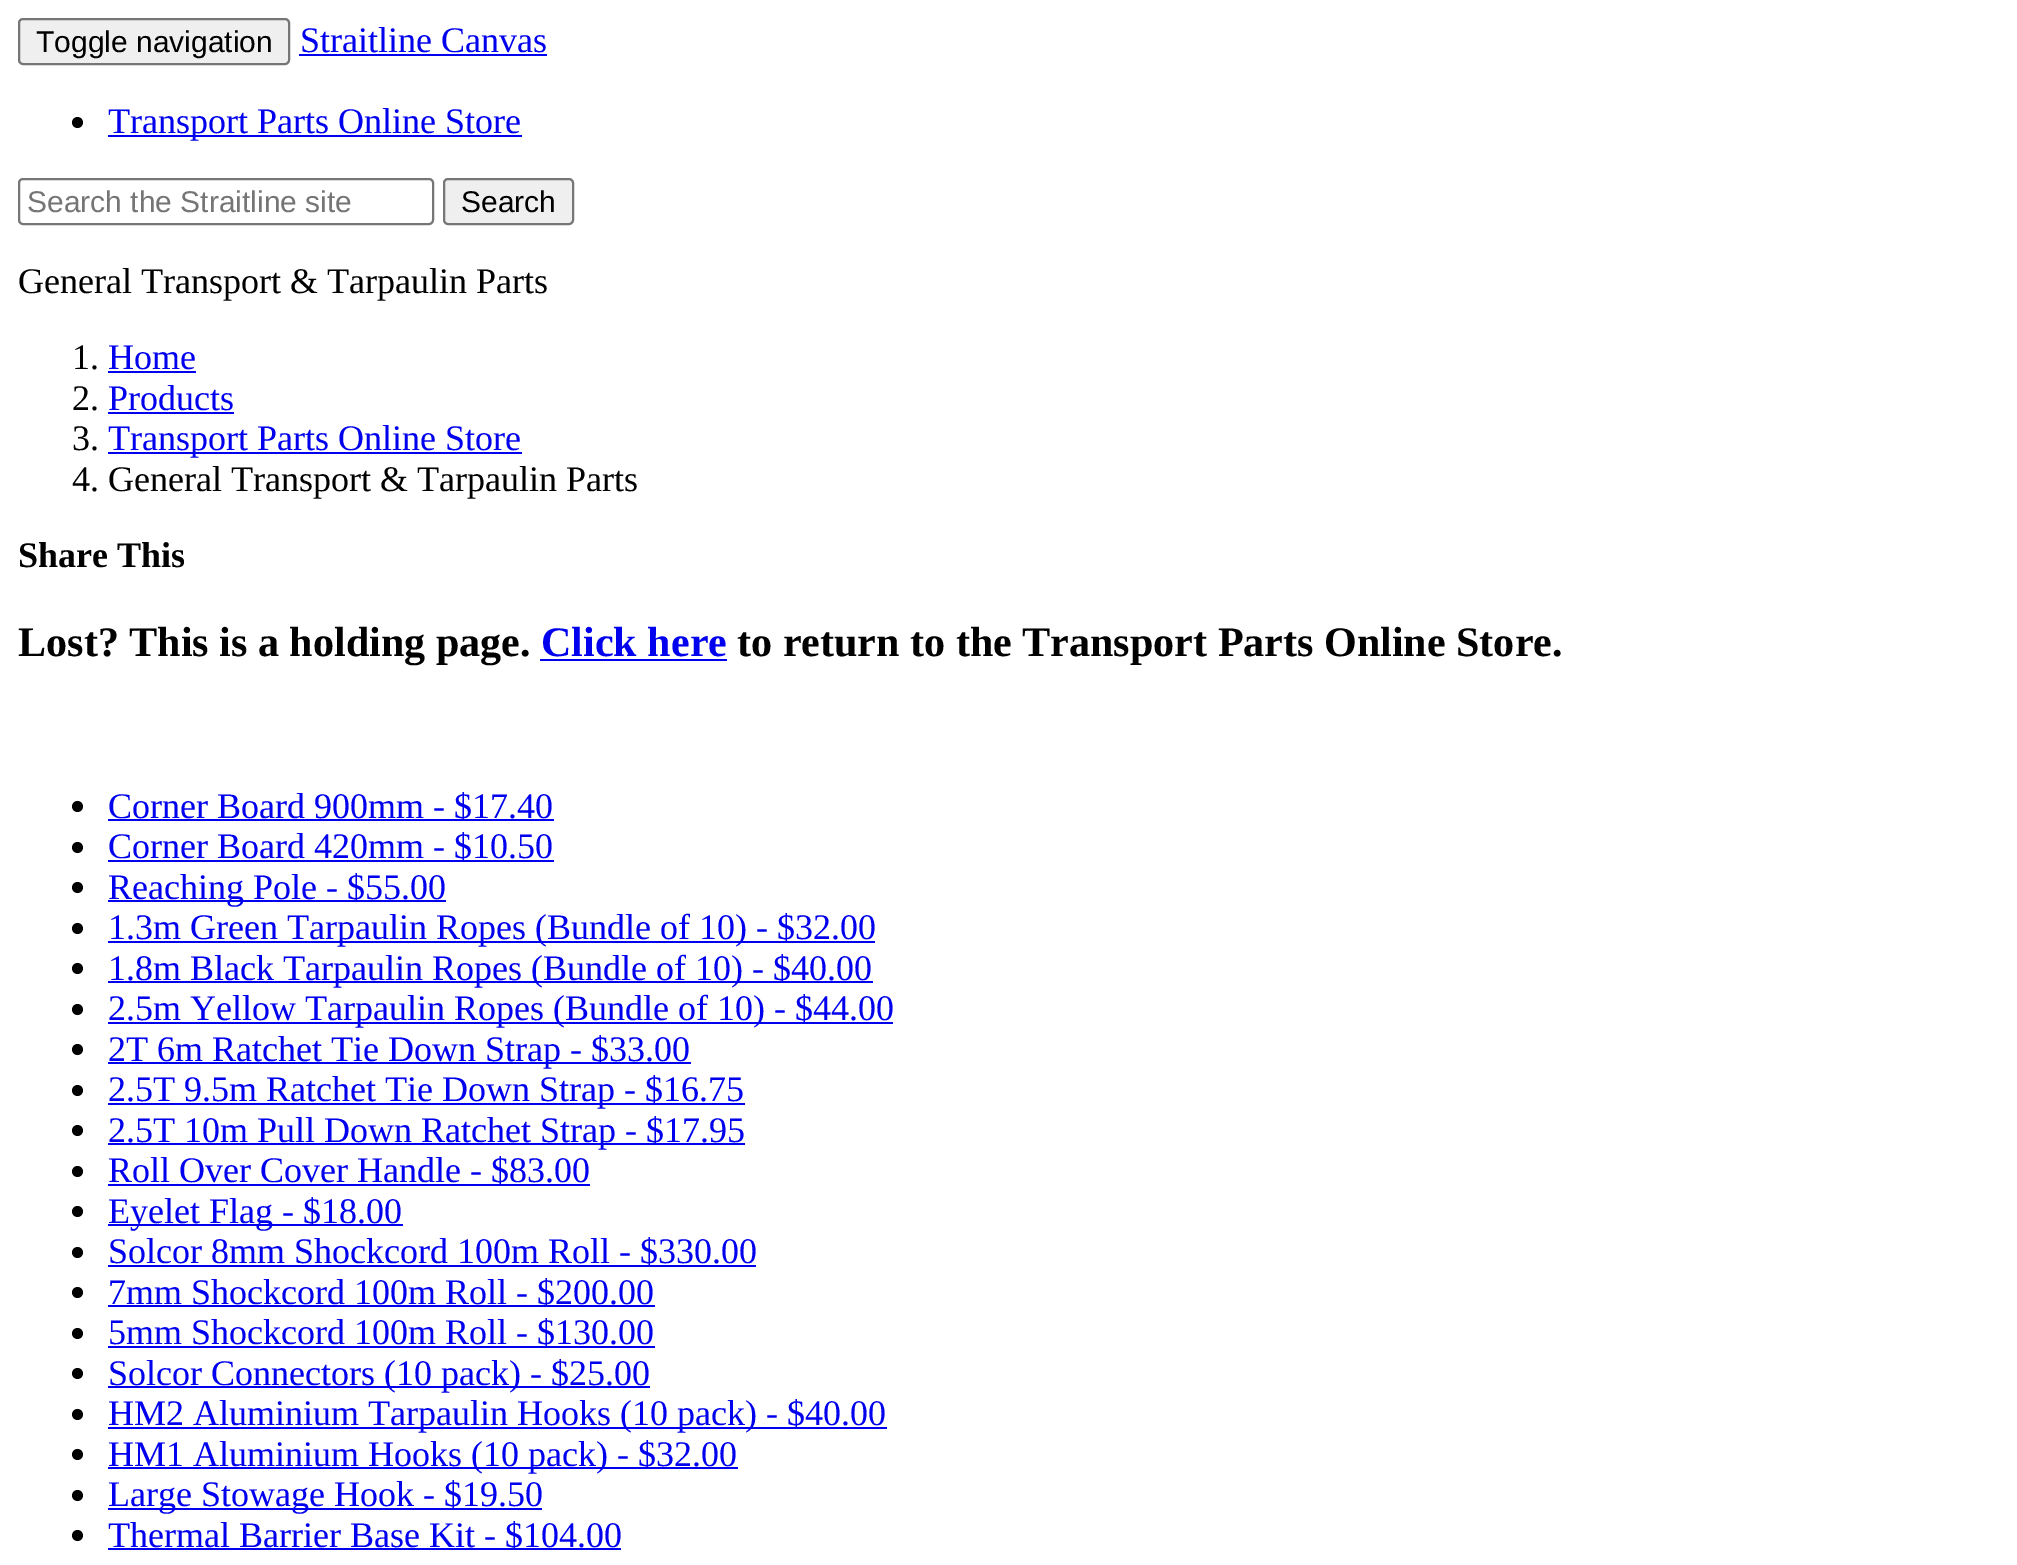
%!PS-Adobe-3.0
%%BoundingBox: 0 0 2017 1565
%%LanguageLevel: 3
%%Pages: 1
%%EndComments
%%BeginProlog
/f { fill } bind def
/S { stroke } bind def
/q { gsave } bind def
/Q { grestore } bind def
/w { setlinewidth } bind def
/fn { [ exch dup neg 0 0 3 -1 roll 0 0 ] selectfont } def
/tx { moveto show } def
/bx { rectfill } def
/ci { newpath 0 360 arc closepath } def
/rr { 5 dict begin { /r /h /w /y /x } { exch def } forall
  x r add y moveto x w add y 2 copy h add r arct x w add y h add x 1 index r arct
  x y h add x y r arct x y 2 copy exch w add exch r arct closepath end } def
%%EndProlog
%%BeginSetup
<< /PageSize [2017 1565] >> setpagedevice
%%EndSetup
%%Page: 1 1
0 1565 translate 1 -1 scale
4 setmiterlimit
1 setgray
0 0 2017 1565 bx
0.937 setgray
19 19 270 45 4 rr q f Q
0.463 setgray
2 w
S
/LiberationSans-Regular 30 fn
0 setgray
(Toggle navigation) 36 52 tx
/LiberationSerif-Regular 36 fn
0 0 0.933 setrgbcolor
(Straitline Canvas) 300 52 tx
299 54 248 2 bx
0 setgray
77.5 122.5 5.5 ci f
0 0 0.933 setrgbcolor
108 135 414 2 bx
(Transport Parts Online Store) 108 133 tx
0.463 setgray
19 179 414 45 4 rr S
/LiberationSans-Regular 30 fn
0.459 setgray
(Search the Straitline site) 27 212 tx
0.937 setgray
444 179 129 45 4 rr q f Q
0.463 setgray
S
0 setgray
(Search) 461 212 tx
/LiberationSerif-Regular 36 fn
(General Transport & Tarpaulin Parts) 18 293 tx
(1.) 72 369 tx
0 0 0.933 setrgbcolor
(Home) 108 369 tx
108 371 88 2 bx
0 setgray
(2.) 72 410 tx
0 0 0.933 setrgbcolor
(Products) 108 410 tx
108 412 126 2 bx
0 setgray
(3.) 72 450 tx
0 0 0.933 setrgbcolor
108 452 414 2 bx
(Transport Parts Online Store) 108 450 tx
0 setgray
(4. General Transport & Tarpaulin Parts) 72 491 tx
/LiberationSerif-Bold 36 fn
(Share This) 18 567 tx
/LiberationSerif-Bold 42.1 fn
(Lost? This is a holding page.) 18 656 tx
0 0 0.933 setrgbcolor
(Click here) 541 656 tx
540 659 187 2 bx
0 setgray
(to return to the Transport Parts Online Store.) 737 656 tx
77.5 806.5 5.5 ci f
0 0 0.933 setrgbcolor
108 819 446 2 bx
/LiberationSerif-Regular 36 fn
(Corner Board 900mm - $17.40) 108 818 tx
0 setgray
77.5 847.5 5.5 ci f
0 0 0.933 setrgbcolor
108 860 446 2 bx
(Corner Board 420mm - $10.50) 108 858 tx
0 setgray
77.5 887.5 5.5 ci f
0 0 0.933 setrgbcolor
108 900 338 2 bx
(Reaching Pole - $55.00) 108 899 tx
0 setgray
77.5 928.5 5.5 ci f
0 0 0.933 setrgbcolor
108 941 767 2 bx
(1.3m Green Tarpaulin Ropes \(Bundle of 10\) - $32.00) 108 939 tx
0 setgray
77.5 968.5 5.5 ci f
0 0 0.933 setrgbcolor
108 981 765 2 bx
(1.8m Black Tarpaulin Ropes \(Bundle of 10\) - $40.00) 108 980 tx
0 setgray
77.5 1009.5 5.5 ci f
0 0 0.933 setrgbcolor
108 1022 785 2 bx
(2.5m Yellow Tarpaulin Ropes \(Bundle of 10\) - $44.00) 108 1020 tx
0 setgray
77.5 1049.5 5.5 ci f
0 0 0.933 setrgbcolor
108 1062 583 2 bx
(2T 6m Ratchet Tie Down Strap - $33.00) 108 1061 tx
0 setgray
77.5 1090.5 5.5 ci f
0 0 0.933 setrgbcolor
108 1103 637 2 bx
(2.5T 9.5m Ratchet Tie Down Strap - $16.75) 108 1101 tx
0 setgray
77.5 1130.5 5.5 ci f
0 0 0.933 setrgbcolor
108 1143 637 2 bx
(2.5T 10m Pull Down Ratchet Strap - $17.95) 108 1142 tx
0 setgray
77.5 1171.5 5.5 ci f
0 0 0.933 setrgbcolor
108 1184 482 2 bx
(Roll Over Cover Handle - $83.00) 108 1182 tx
0 setgray
77.5 1211.5 5.5 ci f
0 0 0.933 setrgbcolor
108 1224 295 2 bx
(Eyelet Flag - $18.00) 108 1223 tx
0 setgray
77.5 1252.5 5.5 ci f
0 0 0.933 setrgbcolor
108 1265 648 2 bx
(Solcor 8mm Shockcord 100m Roll - $330.00) 108 1263 tx
0 setgray
77.5 1292.5 5.5 ci f
0 0 0.933 setrgbcolor
108 1305 547 2 bx
(7mm Shockcord 100m Roll - $200.00) 108 1304 tx
0 setgray
77.5 1333.5 5.5 ci f
0 0 0.933 setrgbcolor
108 1346 547 2 bx
(5mm Shockcord 100m Roll - $130.00) 108 1344 tx
0 setgray
77.5 1373.5 5.5 ci f
0 0 0.933 setrgbcolor
108 1386 542 2 bx
(Solcor Connectors \(10 pack\) - $25.00) 108 1385 tx
0 setgray
77.5 1414.5 5.5 ci f
0 0 0.933 setrgbcolor
108 1427 779 2 bx
(HM2 Aluminium Tarpaulin Hooks \(10 pack\) - $40.00) 108 1425 tx
0 setgray
77.5 1454.5 5.5 ci f
0 0 0.933 setrgbcolor
108 1467 630 2 bx
(HM1 Aluminium Hooks \(10 pack\) - $32.00) 108 1466 tx
0 setgray
77.5 1495.5 5.5 ci f
0 0 0.933 setrgbcolor
108 1508 434 2 bx
(Large Stowage Hook - $19.50) 108 1506 tx
0 setgray
77.5 1535.5 5.5 ci f
0 0 0.933 setrgbcolor
108 1548 513 2 bx
(Thermal Barrier Base Kit - $104.00) 108 1547 tx
showpage
%%EOF
